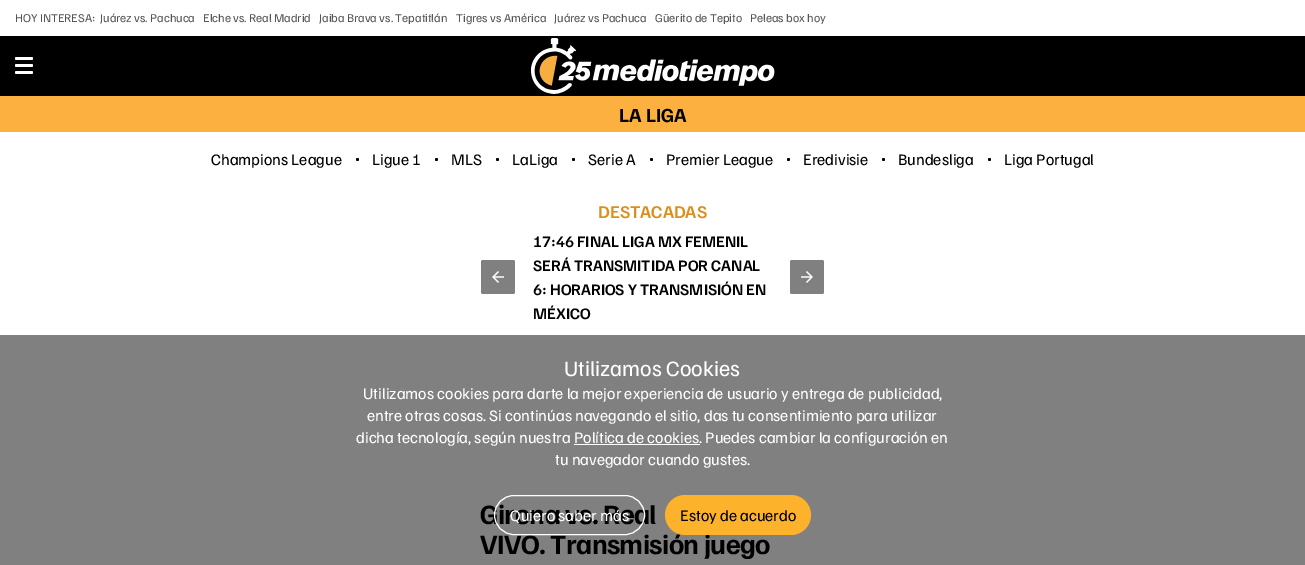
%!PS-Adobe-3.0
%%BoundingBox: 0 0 1305 565
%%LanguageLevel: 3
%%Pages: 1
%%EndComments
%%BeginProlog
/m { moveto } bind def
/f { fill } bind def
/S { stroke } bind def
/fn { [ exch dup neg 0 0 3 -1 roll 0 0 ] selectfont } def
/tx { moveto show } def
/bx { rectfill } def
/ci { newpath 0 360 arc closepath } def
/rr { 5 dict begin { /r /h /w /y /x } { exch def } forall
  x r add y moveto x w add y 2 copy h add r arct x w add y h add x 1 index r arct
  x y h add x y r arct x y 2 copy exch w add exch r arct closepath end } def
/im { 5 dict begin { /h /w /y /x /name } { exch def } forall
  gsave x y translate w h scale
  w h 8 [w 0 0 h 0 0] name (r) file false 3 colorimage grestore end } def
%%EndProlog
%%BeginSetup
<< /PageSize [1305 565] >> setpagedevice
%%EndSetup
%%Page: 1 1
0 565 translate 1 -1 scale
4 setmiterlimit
1 setgray
0 0 1305 565 bx
0.502 setgray
0 335 1305 230 bx
/FamiljenGrotesk-Regular 12 fn
0.333 setgray
(HOY INTERESA:) 15 22 tx
(Juárez vs. Pachuca) 100 22 tx
(Elche vs. Real Madrid) 203 22 tx
(Jaiba Brava vs. Tepatitlán) 319 22 tx
(Tigres vs América) 456 22 tx
(Juárez vs Pachuca) 554 22 tx
(Güerito de Tepito) 655 22 tx
(Peleas box hoy) 750 22 tx
0 setgray
0 36 1305 60 bx
1 setgray
15 57 18 3 1.5 rr f
15 64 18 3 1.5 rr f
15 71 18 3 1.5 rr f
(image0.raw) 531 38 244 56 im
0.984 0.69 0.251 setrgbcolor
0 96 1305 36 bx
/FamiljenGrotesk-Bold 20 fn
0 setgray
(LA LIGA) 619 122 tx
/FamiljenGrotesk-Regular 16 fn
(Champions League) 211 165 tx
357.5 159.5 1.5 ci f
(Ligue 1) 372 165 tx
436.5 159.5 1.5 ci f
(MLS) 451 165 tx
497.5 159.5 1.5 ci f
(LaLiga) 512 165 tx
573.5 159.5 1.5 ci f
(Serie A) 588 165 tx
651.5 159.5 1.5 ci f
(Premier League) 666 165 tx
788.5 159.5 1.5 ci f
(Eredivisie) 803 165 tx
883.5 159.5 1.5 ci f
(Bundesliga) 898 165 tx
989.5 159.5 1.5 ci f
(Liga Portugal) 1004 165 tx
/FamiljenGrotesk-SemiBold 18 fn
0.867 0.557 0.094 setrgbcolor
(DESTACADAS) 598 218 tx
0.502 setgray
481 260 34 34 2 rr f
(image1.raw) 492 271 12 12 im
/FamiljenGrotesk-SemiBold 16 fn
0 setgray
(17:46 FINAL LIGA MX FEMENIL) 533 247 tx
(SERÁ TRANSMITIDA POR CANAL) 533 271 tx
(6: HORARIOS Y TRANSMISIÓN EN) 533 295 tx
(MÉXICO) 533 319 tx
0.502 setgray
790 260 34 34 2 rr f
(image2.raw) 801 271 12 12 im
/FamiljenGrotesk-Bold 28 fn
0 setgray
480 524 m -0.6 0 (Girona vs. Real) ashow
480 554 m -0.6 0 (VIVO. Transmisión juego) ashow
/FamiljenGrotesk-Regular 22 fn
1 setgray
(Utilizamos Cookies) 564 376 tx
/FamiljenGrotesk-Regular 16 fn
(Utilizamos cookies para darte la mejor experiencia de usuario y entrega de publicidad,) 363 399 tx
(entre otras cosas. Si continúas navegando el sitio, das tu consentimiento para utilizar) 367 421 tx
(dicha tecnología, según nuestra Política de cookies. Puedes cambiar la configuración en) 356 443 tx
574 444 126 1 bx
(tu navegador cuando gustes.) 555 465 tx
494.5 495.5 150 39 19.5 rr S
(Quiero saber más) 510 521 tx
0.992 0.698 0.169 setrgbcolor
665 495 146 40 20 rr f
0 setgray
(Estoy de acuerdo) 680 521 tx
showpage
%%EOF
